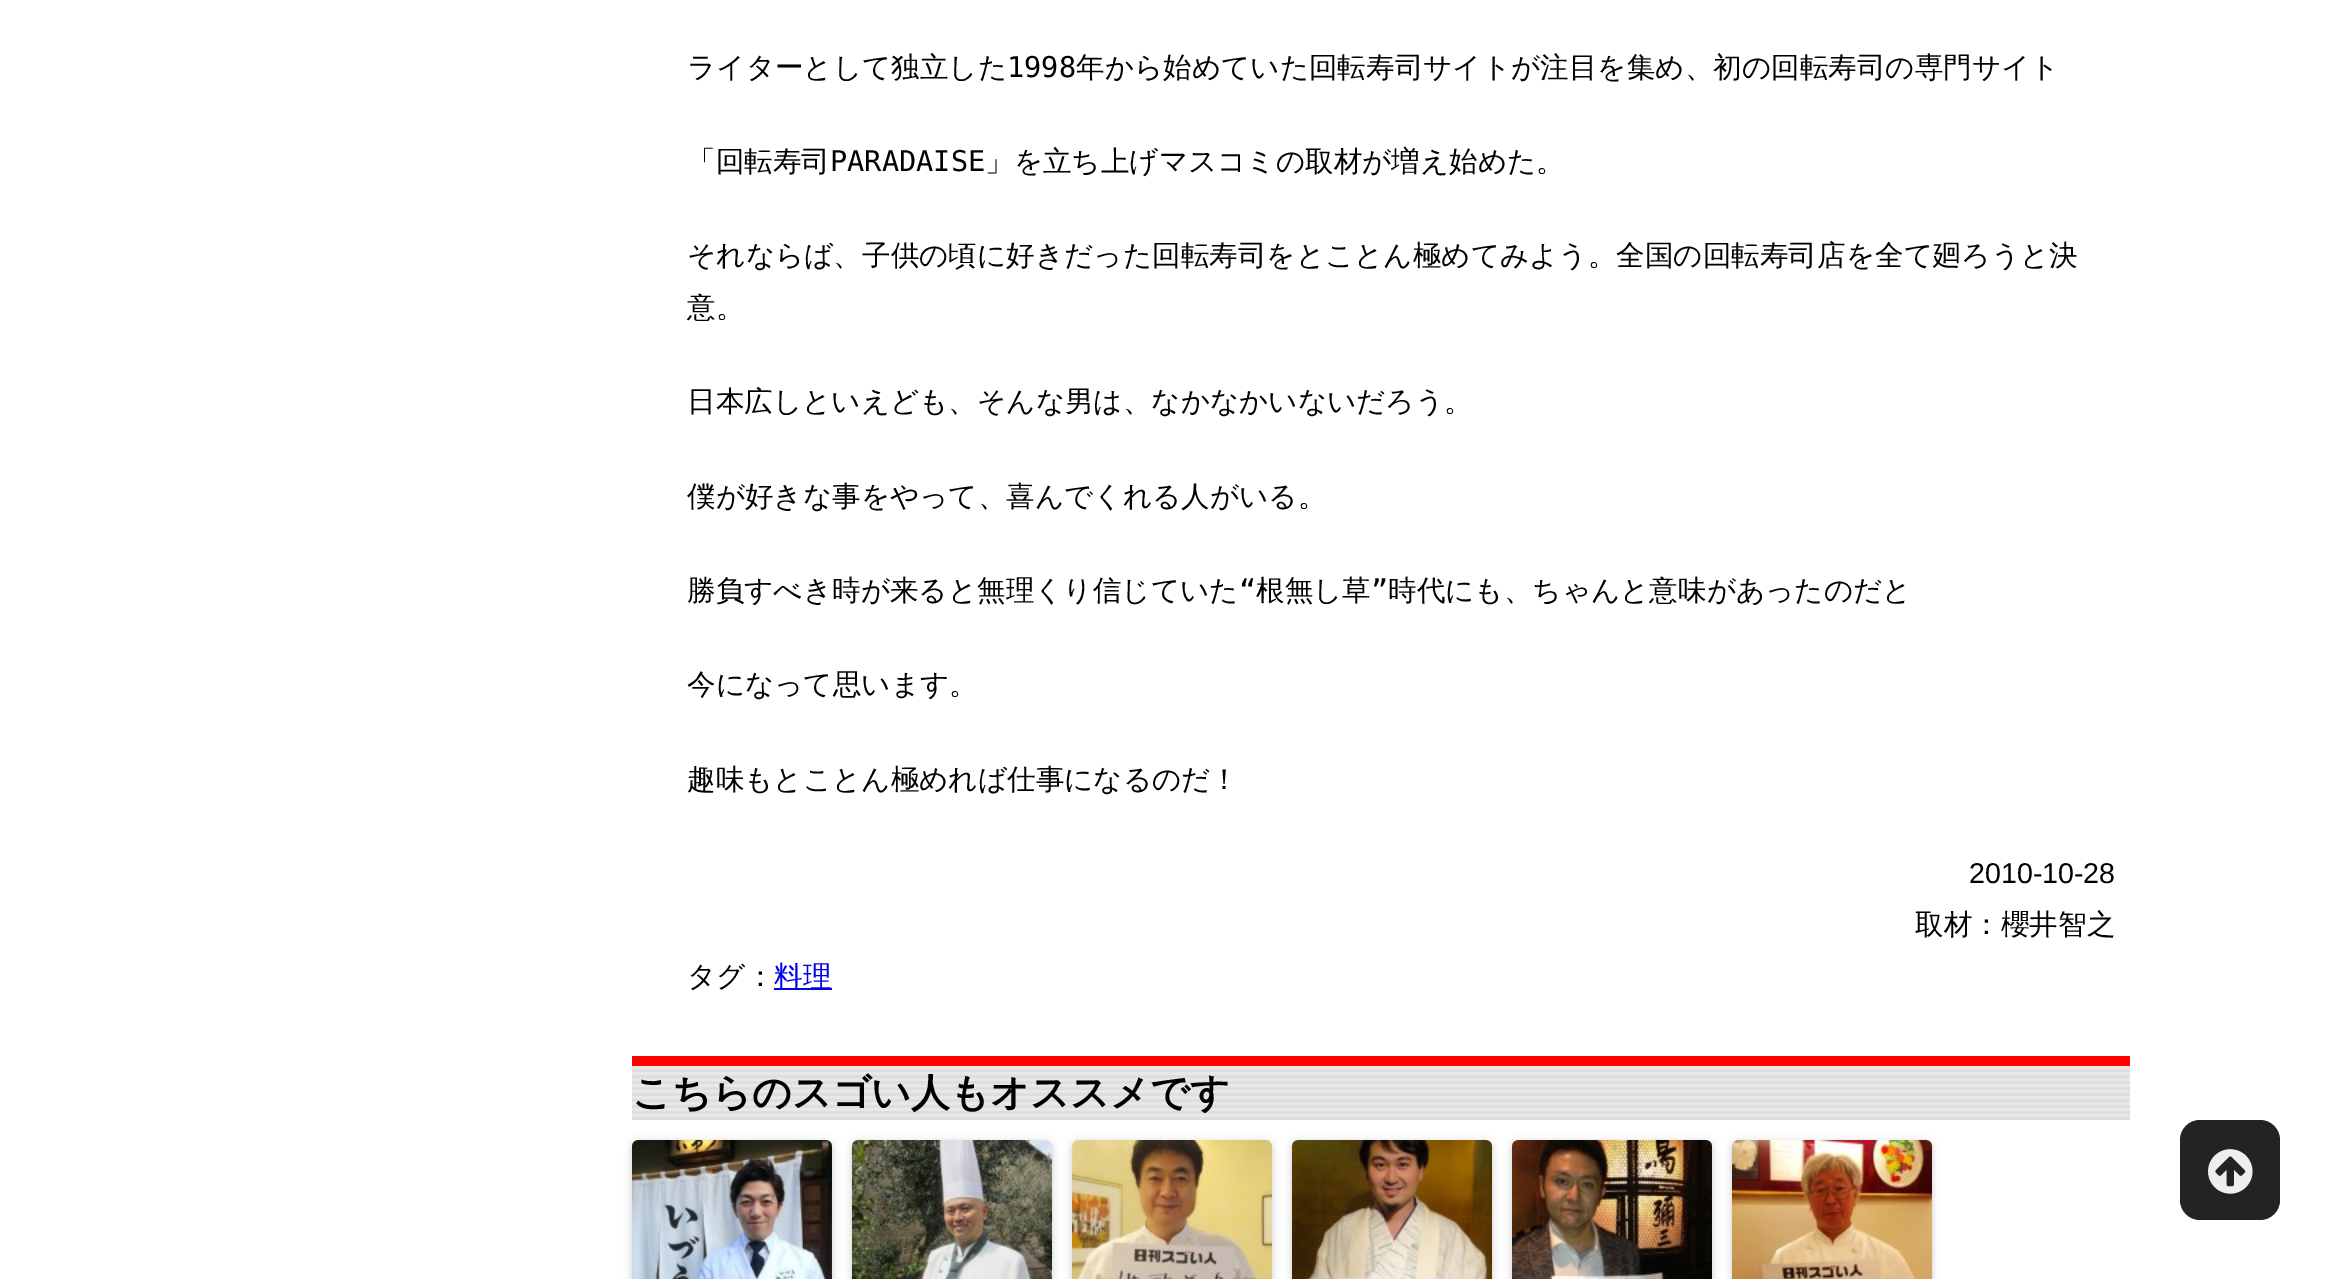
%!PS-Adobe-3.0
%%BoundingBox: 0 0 2340 1279
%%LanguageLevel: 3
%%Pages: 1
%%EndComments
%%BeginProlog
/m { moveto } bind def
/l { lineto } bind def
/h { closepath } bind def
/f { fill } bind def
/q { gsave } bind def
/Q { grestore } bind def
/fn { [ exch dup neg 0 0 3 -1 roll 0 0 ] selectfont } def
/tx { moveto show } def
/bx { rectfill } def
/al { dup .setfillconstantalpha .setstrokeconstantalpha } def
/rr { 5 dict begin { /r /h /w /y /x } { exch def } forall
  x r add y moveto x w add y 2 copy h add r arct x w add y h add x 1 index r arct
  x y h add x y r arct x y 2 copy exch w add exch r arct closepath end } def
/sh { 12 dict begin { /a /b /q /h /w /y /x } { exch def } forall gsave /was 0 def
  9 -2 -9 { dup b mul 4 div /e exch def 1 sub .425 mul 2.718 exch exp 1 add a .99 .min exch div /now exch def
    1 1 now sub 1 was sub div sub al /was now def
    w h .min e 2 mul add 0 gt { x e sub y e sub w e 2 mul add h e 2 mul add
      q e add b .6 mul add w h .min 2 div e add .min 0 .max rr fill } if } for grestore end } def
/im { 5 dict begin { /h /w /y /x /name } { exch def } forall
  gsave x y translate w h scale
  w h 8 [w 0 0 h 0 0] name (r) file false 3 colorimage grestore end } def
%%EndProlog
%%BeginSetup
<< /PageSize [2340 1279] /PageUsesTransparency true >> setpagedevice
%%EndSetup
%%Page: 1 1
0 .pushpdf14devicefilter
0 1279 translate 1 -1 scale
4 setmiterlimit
1 setgray
0 0 2340 1279 bx
/WenQuanYiZenHei-Medium 28.6 fn
0 setgray
(ライターとして独立した) 687 77 tx
/DejaVuSansMono-Regular 28.6 fn
(1998) 1007 77 tx
/WenQuanYiZenHei-Medium 28.6 fn
(年から始めていた回転寿司サイトが注目を集め、初の回転寿司の専門サイト) 1076 77 tx
(「回転寿司) 687 171 tx
/DejaVuSansMono-Regular 28.6 fn
(PARADAISE) 830 171 tx
/WenQuanYiZenHei-Medium 28.6 fn
(」を立ち上げマスコミの取材が増え始めた。) 985 171 tx
(それならば、子供の頃に好きだった回転寿司をとことん極めてみよう。全国の回転寿司店を全て廻ろうと決) 687 265 tx
(意。) 687 317 tx
(日本広しといえども、そんな男は、なかなかいないだろう。) 687 411 tx
(僕が好きな事をやって、喜んでくれる人がいる。) 687 506 tx
(勝負すべき時が来ると無理くり信じていた) 687 600 tx
/DejaVuSansMono-Regular 28.6 fn
(“) 1239 600 tx
/WenQuanYiZenHei-Medium 28.6 fn
(根無し草) 1256 600 tx
/DejaVuSansMono-Regular 28.6 fn
(”) 1371 600 tx
/WenQuanYiZenHei-Medium 28.6 fn
(時代にも、ちゃんと意味があったのだと) 1388 600 tx
(今になって思います。) 687 694 tx
(趣味もとことん極めれば仕事になるのだ！) 687 789 tx
/LiberationSans-Regular 28.6 fn
(2010-10-28) 1969 883 tx
/WenQuanYiZenHei-Medium 28.6 fn
(取材：櫻井智之) 1915 934 tx
(タグ：) 687 986 tx
0 0 0.933 setrgbcolor
774 988 58 2 bx
(料理) 774 986 tx
q 632 1066 m 2130 1066 l 2130 1072 l 632 1072 l h clip newpath
<< /ShadingType 2 /ColorSpace /DeviceRGB /Coords [635 1066 635 1072] /Extend [true true] /Function << /FunctionType 3 /Domain [0 1] /Functions [<< /FunctionType 2 /Domain [0 1] /C0 [0.91 0.91 0.91] /C1 [0.91 0.91 0.91] /N 1 >> << /FunctionType 2 /Domain [0 1] /C0 [0.871 0.871 0.871] /C1 [0.871 0.871 0.871] /N 1 >>] /Bounds [0.5] /Encode [0 1 0 1] >> >> shfill Q
q 632 1072 m 2130 1072 l 2130 1078 l 632 1078 l h clip newpath
<< /ShadingType 2 /ColorSpace /DeviceRGB /Coords [635 1072 635 1078] /Extend [true true] /Function << /FunctionType 3 /Domain [0 1] /Functions [<< /FunctionType 2 /Domain [0 1] /C0 [0.91 0.91 0.91] /C1 [0.91 0.91 0.91] /N 1 >> << /FunctionType 2 /Domain [0 1] /C0 [0.871 0.871 0.871] /C1 [0.871 0.871 0.871] /N 1 >>] /Bounds [0.5] /Encode [0 1 0 1] >> >> shfill Q
q 632 1078 m 2130 1078 l 2130 1084 l 632 1084 l h clip newpath
<< /ShadingType 2 /ColorSpace /DeviceRGB /Coords [635 1078 635 1084] /Extend [true true] /Function << /FunctionType 3 /Domain [0 1] /Functions [<< /FunctionType 2 /Domain [0 1] /C0 [0.91 0.91 0.91] /C1 [0.91 0.91 0.91] /N 1 >> << /FunctionType 2 /Domain [0 1] /C0 [0.871 0.871 0.871] /C1 [0.871 0.871 0.871] /N 1 >>] /Bounds [0.5] /Encode [0 1 0 1] >> >> shfill Q
q 632 1084 m 2130 1084 l 2130 1090 l 632 1090 l h clip newpath
<< /ShadingType 2 /ColorSpace /DeviceRGB /Coords [635 1084 635 1090] /Extend [true true] /Function << /FunctionType 3 /Domain [0 1] /Functions [<< /FunctionType 2 /Domain [0 1] /C0 [0.91 0.91 0.91] /C1 [0.91 0.91 0.91] /N 1 >> << /FunctionType 2 /Domain [0 1] /C0 [0.871 0.871 0.871] /C1 [0.871 0.871 0.871] /N 1 >>] /Bounds [0.5] /Encode [0 1 0 1] >> >> shfill Q
q 632 1090 m 2130 1090 l 2130 1096 l 632 1096 l h clip newpath
<< /ShadingType 2 /ColorSpace /DeviceRGB /Coords [635 1090 635 1096] /Extend [true true] /Function << /FunctionType 3 /Domain [0 1] /Functions [<< /FunctionType 2 /Domain [0 1] /C0 [0.91 0.91 0.91] /C1 [0.91 0.91 0.91] /N 1 >> << /FunctionType 2 /Domain [0 1] /C0 [0.871 0.871 0.871] /C1 [0.871 0.871 0.871] /N 1 >>] /Bounds [0.5] /Encode [0 1 0 1] >> >> shfill Q
q 632 1096 m 2130 1096 l 2130 1102 l 632 1102 l h clip newpath
<< /ShadingType 2 /ColorSpace /DeviceRGB /Coords [635 1096 635 1102] /Extend [true true] /Function << /FunctionType 3 /Domain [0 1] /Functions [<< /FunctionType 2 /Domain [0 1] /C0 [0.91 0.91 0.91] /C1 [0.91 0.91 0.91] /N 1 >> << /FunctionType 2 /Domain [0 1] /C0 [0.871 0.871 0.871] /C1 [0.871 0.871 0.871] /N 1 >>] /Bounds [0.5] /Encode [0 1 0 1] >> >> shfill Q
q 632 1102 m 2130 1102 l 2130 1108 l 632 1108 l h clip newpath
<< /ShadingType 2 /ColorSpace /DeviceRGB /Coords [635 1102 635 1108] /Extend [true true] /Function << /FunctionType 3 /Domain [0 1] /Functions [<< /FunctionType 2 /Domain [0 1] /C0 [0.91 0.91 0.91] /C1 [0.91 0.91 0.91] /N 1 >> << /FunctionType 2 /Domain [0 1] /C0 [0.871 0.871 0.871] /C1 [0.871 0.871 0.871] /N 1 >>] /Bounds [0.5] /Encode [0 1 0 1] >> >> shfill Q
q 632 1108 m 2130 1108 l 2130 1114 l 632 1114 l h clip newpath
<< /ShadingType 2 /ColorSpace /DeviceRGB /Coords [635 1108 635 1114] /Extend [true true] /Function << /FunctionType 3 /Domain [0 1] /Functions [<< /FunctionType 2 /Domain [0 1] /C0 [0.91 0.91 0.91] /C1 [0.91 0.91 0.91] /N 1 >> << /FunctionType 2 /Domain [0 1] /C0 [0.871 0.871 0.871] /C1 [0.871 0.871 0.871] /N 1 >>] /Bounds [0.5] /Encode [0 1 0 1] >> >> shfill Q
q 632 1114 m 2130 1114 l 2130 1120 l 632 1120 l h clip newpath
<< /ShadingType 2 /ColorSpace /DeviceRGB /Coords [635 1114 635 1120] /Extend [true true] /Function << /FunctionType 3 /Domain [0 1] /Functions [<< /FunctionType 2 /Domain [0 1] /C0 [0.91 0.91 0.91] /C1 [0.91 0.91 0.91] /N 1 >> << /FunctionType 2 /Domain [0 1] /C0 [0.871 0.871 0.871] /C1 [0.871 0.871 0.871] /N 1 >>] /Bounds [0.5] /Encode [0 1 0 1] >> >> shfill Q
1 0 0 setrgbcolor
632 1056 1498 10 bx
/WenQuanYiZenHei-Bold 39 fn
0 setgray
(こちらのスゴい人もオススメです) 632 1106 tx
632 1142 200 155 6 4 0.2 sh
(image0.raw) 632 1140 200 139 im
852 1142 200 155 6 4 0.2 sh
(image1.raw) 852 1140 200 139 im
1072 1142 200 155 6 4 0.2 sh
(image2.raw) 1072 1140 200 139 im
1292 1142 200 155 6 4 0.2 sh
(image3.raw) 1292 1140 200 139 im
1512 1142 200 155 6 4 0.2 sh
(image4.raw) 1512 1140 200 139 im
1732 1142 200 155 6 4 0.2 sh
(image5.raw) 1732 1140 200 139 im
0.137 setgray
2180 1120 100 100 20 rr f
(image6.raw) 2208 1149 45 45 im
.poppdf14devicefilter showpage
%%EOF
